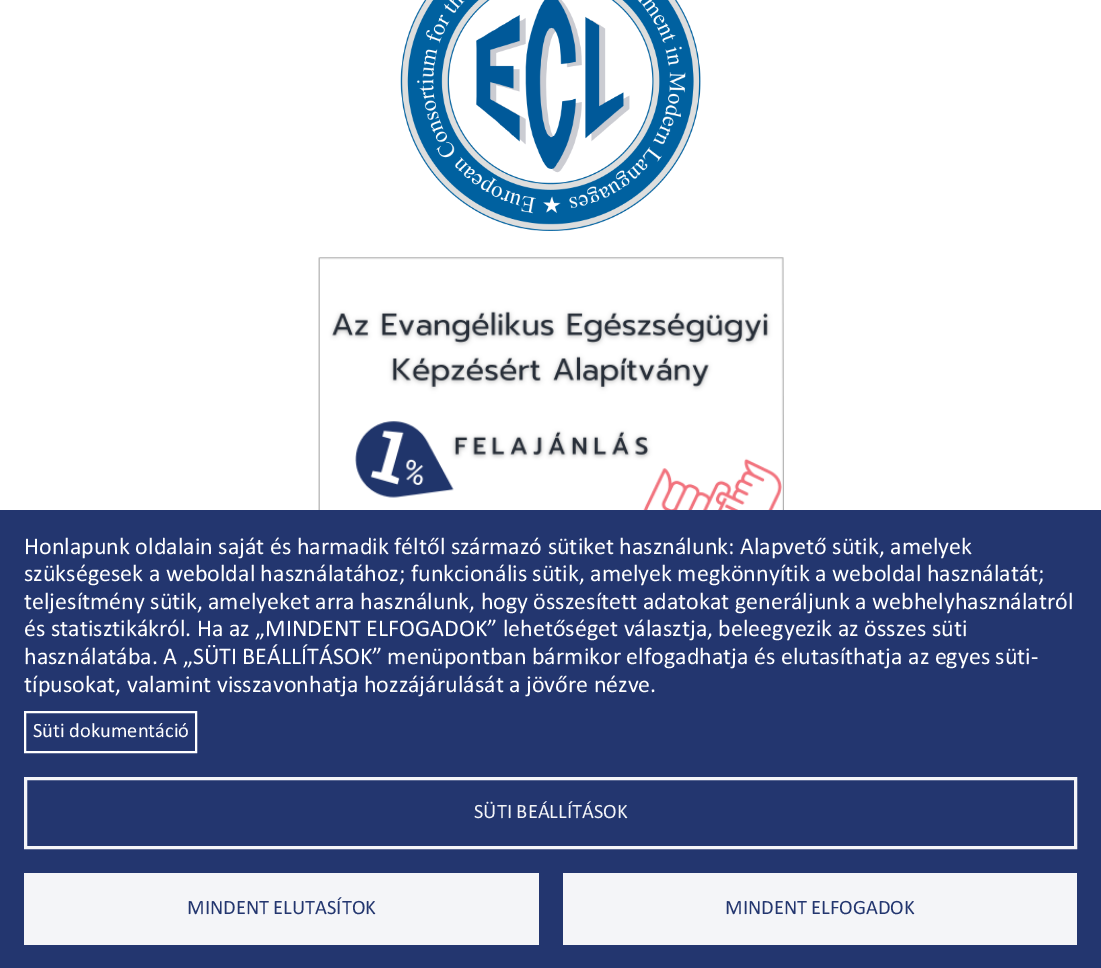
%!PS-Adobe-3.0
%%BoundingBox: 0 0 1101 968
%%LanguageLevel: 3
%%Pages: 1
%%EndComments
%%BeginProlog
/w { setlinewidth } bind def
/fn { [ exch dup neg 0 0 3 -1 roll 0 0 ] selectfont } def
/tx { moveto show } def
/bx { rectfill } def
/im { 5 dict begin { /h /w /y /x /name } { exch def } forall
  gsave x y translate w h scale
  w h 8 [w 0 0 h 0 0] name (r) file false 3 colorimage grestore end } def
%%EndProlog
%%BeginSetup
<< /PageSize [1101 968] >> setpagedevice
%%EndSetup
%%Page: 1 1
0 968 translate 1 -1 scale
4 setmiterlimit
1 setgray
0 0 1101 968 bx
(image0.raw) 400 0 301 231 im
(image1.raw) 318 257 466 253 im
0.137 0.212 0.435 setrgbcolor
0 510 1101 458 bx
/Calibri-Regular 24 fn
1 setgray
(Honlapunk oldalain saját és harmadik féltől származó sütiket használunk: Alapvető sütik, amelyek) 24 554 tx
(szükségesek a weboldal használatához; funkcionális sütik, amelyek megkönnyítik a weboldal használatát;) 24 581 tx
(teljesítmény sütik, amelyeket arra használunk, hogy összesített adatokat generáljunk a webhelyhasználatról) 24 609 tx
(és statisztikákról. Ha az „MINDENT ELFOGADOK” lehetőséget választja, beleegyezik az összes süti) 24 636 tx
(használatába. A „SÜTI BEÁLLÍTÁSOK” menüpontban bármikor elfogadhatja és elutasíthatja az egyes süti-) 24 664 tx
(típusokat, valamint visszavonhatja hozzájárulását a jövőre nézve.) 24 692 tx
2 w
25 712 171 40 rectstroke
/Calibri-Regular 20.5 fn
(Süti dokumentáció) 33 737 tx
0.957 0.961 0.973 setrgbcolor
3 w
25.5 778.5 1050 69 rectstroke
(SÜTI BEÁLLÍTÁSOK) 474 818 tx
24 873 515 72 bx
0.137 0.212 0.435 setrgbcolor
(MINDENT ELUTASÍTOK) 187 914 tx
0.957 0.961 0.973 setrgbcolor
563 873 514 72 bx
0.137 0.212 0.435 setrgbcolor
(MINDENT ELFOGADOK) 725 914 tx
showpage
%%EOF
